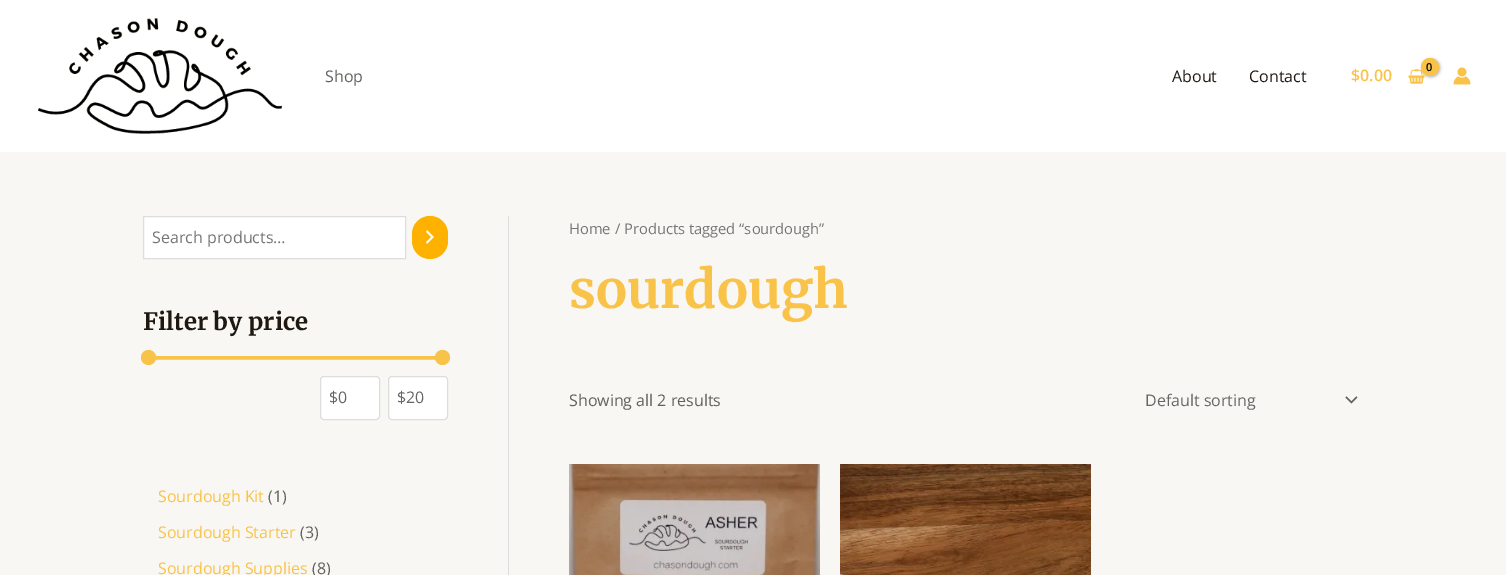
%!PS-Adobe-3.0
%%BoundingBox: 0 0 1506 575
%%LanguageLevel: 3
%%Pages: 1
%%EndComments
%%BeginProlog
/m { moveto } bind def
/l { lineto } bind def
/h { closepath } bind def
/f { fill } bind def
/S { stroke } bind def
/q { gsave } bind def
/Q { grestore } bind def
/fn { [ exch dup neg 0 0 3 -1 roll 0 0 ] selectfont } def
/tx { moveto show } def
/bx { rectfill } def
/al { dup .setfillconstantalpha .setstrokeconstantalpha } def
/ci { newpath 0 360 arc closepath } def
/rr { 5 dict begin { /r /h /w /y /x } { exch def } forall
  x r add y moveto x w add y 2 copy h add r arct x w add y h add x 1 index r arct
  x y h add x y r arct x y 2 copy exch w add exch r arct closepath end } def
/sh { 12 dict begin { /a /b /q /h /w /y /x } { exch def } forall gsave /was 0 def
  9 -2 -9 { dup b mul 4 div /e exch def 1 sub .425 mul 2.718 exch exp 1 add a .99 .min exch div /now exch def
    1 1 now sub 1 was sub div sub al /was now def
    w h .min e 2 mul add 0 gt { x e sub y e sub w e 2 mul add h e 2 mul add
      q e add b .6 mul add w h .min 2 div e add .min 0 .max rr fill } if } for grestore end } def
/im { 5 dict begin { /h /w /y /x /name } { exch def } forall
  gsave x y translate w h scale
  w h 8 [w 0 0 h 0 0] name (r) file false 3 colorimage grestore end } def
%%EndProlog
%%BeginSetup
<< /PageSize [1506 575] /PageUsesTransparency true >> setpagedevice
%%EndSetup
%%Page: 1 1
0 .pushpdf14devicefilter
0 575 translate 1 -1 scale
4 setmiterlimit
0.973 0.969 0.953 setrgbcolor
0 0 1506 575 bx
1 setgray
0 0 1506 152 bx
(image0.raw) 38 18 244 116 im
/OpenSans-Regular 16 fn
0.384 0.38 0.361 setrgbcolor
(Shop) 325 82 tx
0.118 0.094 0.063 setrgbcolor
(About) 1172 82 tx
(Contact) 1249 82 tx
/OpenSans-SemiBold 16 fn
0.976 0.765 0.286 setrgbcolor
($0.00) 1351 81 tx
(image1.raw) 1408 69 17 15 im
0 setgray
1422 59 18 18 9 1.5 0.3 sh
0.976 0.765 0.286 setrgbcolor
1430 67 9 ci f
/OpenSans-SemiBold 11 fn
0 setgray
(0) 1426 71 tx
(image2.raw) 1453 67 18 18 im
0.867 setgray
508 216 1 359 bx
1 setgray
143.5 216.5 m 405.5 216.5 l 405.5 258.5 l 143.5 258.5 l h q f Q
0.867 setgray
S
/OpenSans-Regular 16 fn
0.459 setgray
(Search products…) 152 243 tx
1 0.694 0 setrgbcolor
412 216 36 43 18 rr f
(image3.raw) 426 230 8 14 im
/Merriweather-Light 24 fn
0.118 0.094 0.063 setrgbcolor
(Filter by price) 143 330 tx
0.82 0.82 0.816 setrgbcolor
155 359 281 1 bx
0.976 0.765 0.286 setrgbcolor
155 356 281 3 bx
148.5 357.5 7.5 ci f
442.5 357.5 7.5 ci f
1 setgray
320.5 376.5 59 43 3.5 rr q f Q
0.867 setgray
S
/OpenSans-Regular 16 fn
0.4 setgray
($0) 329 403 tx
1 setgray
388.5 376.5 59 43 3.5 rr q f Q
0.867 setgray
S
0.4 setgray
($20) 397 403 tx
0.976 0.765 0.286 setrgbcolor
(Sourdough Kit) 158 502 tx
0.384 0.38 0.361 setrgbcolor
(\(1\)) 268 502 tx
0.976 0.765 0.286 setrgbcolor
(Sourdough Starter) 158 538 tx
0.384 0.38 0.361 setrgbcolor
(\(3\)) 300 538 tx
0.976 0.765 0.286 setrgbcolor
(Sourdough Supplies) 158 574 tx
0.384 0.38 0.361 setrgbcolor
(\(8\)) 312 574 tx
/OpenSans-Regular 14.75 fn
0.459 setgray
(Home / Products tagged “sourdough”) 569 234 tx
/Merriweather-Light 52 fn
0.976 0.765 0.286 setrgbcolor
(sourdough) 569 308 tx
/OpenSans-Regular 16 fn
0.384 0.38 0.361 setrgbcolor
(Showing all 2 results) 569 406 tx
(image4.raw) 1345 396 13 8 im
0.4 setgray
(Default sorting) 1145 406 tx
(image5.raw) 569 464 251 111 im
(image6.raw) 840 464 251 111 im
.poppdf14devicefilter showpage
%%EOF
